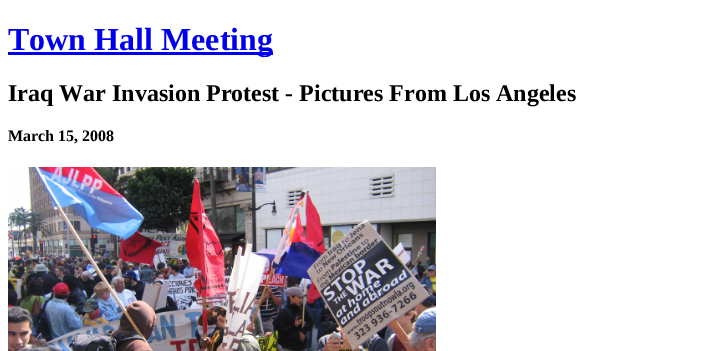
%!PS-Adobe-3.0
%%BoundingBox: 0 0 713 351
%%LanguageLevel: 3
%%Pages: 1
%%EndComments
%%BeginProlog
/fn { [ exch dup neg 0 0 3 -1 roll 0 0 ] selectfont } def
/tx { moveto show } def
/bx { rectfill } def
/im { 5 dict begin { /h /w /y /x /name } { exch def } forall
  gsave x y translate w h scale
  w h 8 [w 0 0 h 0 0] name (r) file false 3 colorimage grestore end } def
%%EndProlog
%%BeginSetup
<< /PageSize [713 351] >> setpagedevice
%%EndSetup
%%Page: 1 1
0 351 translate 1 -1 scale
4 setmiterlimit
1 setgray
0 0 713 351 bx
0 0 0.933 setrgbcolor
8 52 265 3 bx
/LiberationSerif-Bold 32 fn
(Town Hall Meeting) 8 50 tx
/LiberationSerif-Bold 24 fn
0 setgray
(Iraq War Invasion Protest - Pictures From Los Angeles) 8 101 tx
/LiberationSerif-Bold 16 fn
(March 15, 2008) 8 141 tx
(image0.raw) 8 167 428 184 im
showpage
%%EOF
